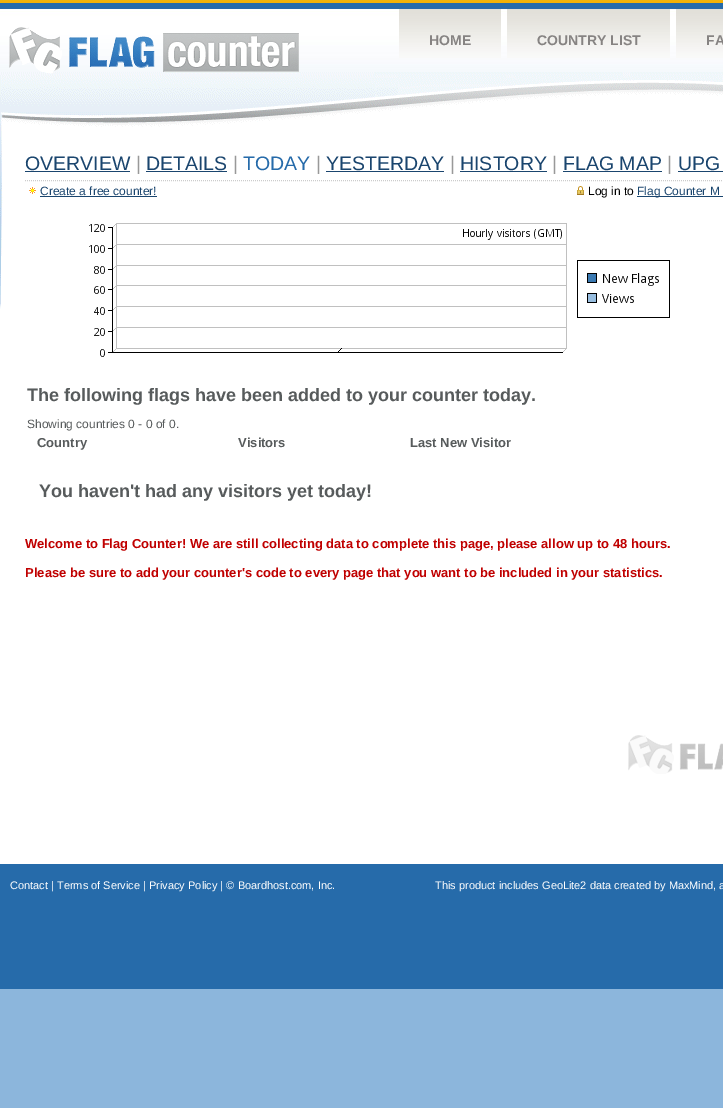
%!PS-Adobe-3.0
%%BoundingBox: 0 0 723 1108
%%LanguageLevel: 3
%%Pages: 1
%%EndComments
%%BeginProlog
/m { moveto } bind def
/l { lineto } bind def
/S { stroke } bind def
/fn { [ exch dup neg 0 0 3 -1 roll 0 0 ] selectfont } def
/tx { moveto show } def
/bx { rectfill } def
/im { 5 dict begin { /h /w /y /x /name } { exch def } forall
  gsave x y translate w h scale
  w h 8 [w 0 0 h 0 0] name (r) file false 3 colorimage grestore end } def
%%EndProlog
%%BeginSetup
<< /PageSize [723 1108] >> setpagedevice
%%EndSetup
%%Page: 1 1
0 1108 translate 1 -1 scale
4 setmiterlimit
0.549 0.714 0.863 setrgbcolor
0 0 723 1108 bx
(image0.raw) 0 0 723 72 im
(image1.raw) 9 27 290 45 im
(image2.raw) 399 9 102 49 im
/LiberationSans-Bold 14 fn
0.525 0.514 0.51 setrgbcolor
(HOME) 429 45 tx
(image3.raw) 507 9 163 49 im
(COUNTRY LIST) 537 45 tx
(image4.raw) 676 9 47 49 im
(FA) 706 45 tx
1 setgray
0 309 723 555 bx
(image5.raw) 0 72 723 237 im
0.8 setgray
[1 1] 0 setdash
25 180.5 m 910 180.5 l S
/LiberationSans-Regular 19.5 fn
0.102 0.271 0.431 setrgbcolor
(OVERVIEW) 25 170 tx
25 171 105 1 bx
0.6 setgray
(|) 136 170 tx
0.102 0.271 0.431 setrgbcolor
(DETAILS) 146 170 tx
146 171 81 1 bx
0.6 setgray
(|) 233 170 tx
0.149 0.42 0.667 setrgbcolor
(TODAY) 243 170 tx
0.6 setgray
(|) 316 170 tx
0.102 0.271 0.431 setrgbcolor
(YESTERDAY) 326 170 tx
326 171 118 1 bx
0.6 setgray
(|) 450 170 tx
0.102 0.271 0.431 setrgbcolor
(HISTORY) 460 170 tx
460 171 87 1 bx
0.6 setgray
(|) 552 170 tx
0.102 0.271 0.431 setrgbcolor
(FLAG MAP) 563 170 tx
563 171 99 1 bx
0.6 setgray
(|) 667 170 tx
0.102 0.271 0.431 setrgbcolor
(UPG) 678 170 tx
678 171 45 1 bx
(image6.raw) 29 187 7 7 im
/LiberationSans-Regular 12 fn
(Create a free counter!) 40 195 tx
40 196 117 1 bx
(image7.raw) 577 186 7 9 im
0 setgray
(Log in to) 588 195 tx
0.102 0.271 0.431 setrgbcolor
637 196 86 1 bx
(Flag Counter M) 637 195 tx
(image8.raw) 89 223 581 134 im
/LiberationSans-Bold 18 fn
0.341 0.357 0.361 setrgbcolor
(The following flags have been added to your counter today.) 27 401 tx
/LiberationSans-Regular 12 fn
(Showing countries 0 - 0 of 0.) 27 428 tx
/LiberationSans-Bold 13 fn
(Country) 37 447 tx
(Visitors) 238 447 tx
(Last New Visitor) 410 447 tx
/LiberationSans-Bold 18 fn
(You haven't had any visitors yet today!) 39 497 tx
/LiberationSans-Bold 13 fn
0.753 0 0 setrgbcolor
(Welcome to Flag Counter! We are still collecting data to complete this page, please allow up to 48 hours.) 25 548 tx
(Please be sure to add your counter's code to every page that you want to be included in your statistics.) 25 577 tx
(image9.raw) 628 735 95 39 im
0.149 0.42 0.667 setrgbcolor
0 864 723 125 bx
/LiberationSans-Regular 11 fn
1 setgray
(Contact | Terms of Service | Privacy Policy | © Boardhost.com, Inc.) 10 889 tx
(This product includes GeoLite2 data created by MaxMind, a) 435 889 tx
showpage
%%EOF
